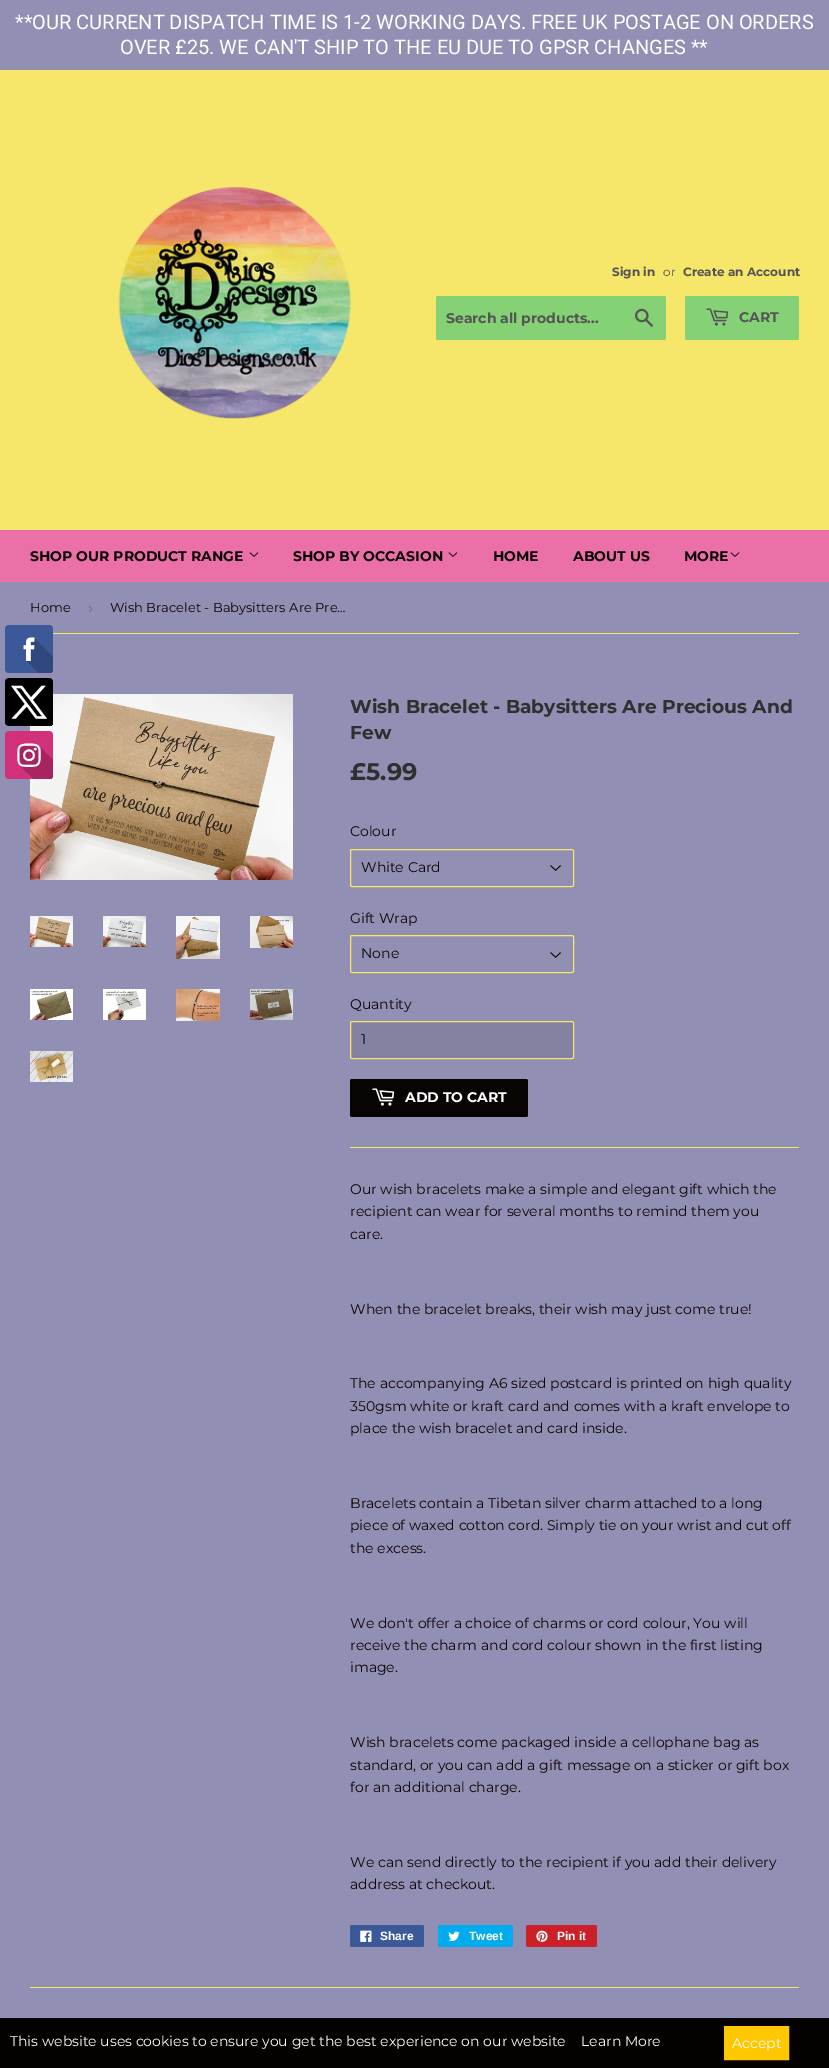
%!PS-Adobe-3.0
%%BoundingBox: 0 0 829 2068
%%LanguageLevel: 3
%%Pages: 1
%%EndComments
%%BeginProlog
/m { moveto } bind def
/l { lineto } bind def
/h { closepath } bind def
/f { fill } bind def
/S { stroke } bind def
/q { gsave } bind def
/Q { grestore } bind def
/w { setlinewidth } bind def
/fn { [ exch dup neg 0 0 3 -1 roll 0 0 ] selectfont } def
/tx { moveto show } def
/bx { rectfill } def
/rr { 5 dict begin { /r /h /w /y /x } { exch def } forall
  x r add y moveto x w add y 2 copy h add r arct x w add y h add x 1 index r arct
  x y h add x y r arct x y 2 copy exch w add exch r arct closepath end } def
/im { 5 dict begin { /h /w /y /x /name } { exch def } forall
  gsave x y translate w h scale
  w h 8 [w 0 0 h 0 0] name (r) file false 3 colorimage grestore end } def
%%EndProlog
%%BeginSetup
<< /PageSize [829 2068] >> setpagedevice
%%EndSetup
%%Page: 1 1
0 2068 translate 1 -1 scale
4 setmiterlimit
0.569 0.561 0.702 setrgbcolor
0 0 829 2068 bx
/Roboto-Regular 20 fn
1 setgray
(**OUR CURRENT DISPATCH TIME IS 1-2 WORKING DAYS. FREE UK POSTAGE ON ORDERS) 15 29 tx
(OVER £25. WE CAN'T SHIP TO THE EU DUE TO GPSR CHANGES **) 120 54 tx
0.965 0.906 0.416 setrgbcolor
0 70 829 460 bx
(image0.raw) 118 187 233 232 im
/Montserrat-Bold 12 fn
0.329 setgray
(Sign in) 612 276 tx
/Montserrat-Regular 12 fn
(or) 663 276 tx
/Montserrat-Bold 12 fn
(Create an Account) 683 276 tx
0.522 0.82 0.463 setrgbcolor
436 296 230 44 2 rr f
/Montserrat-Bold 14 fn
0.329 setgray
(Search all products...) 446 323 tx
(image1.raw) 635 308 18 19 im
0.522 0.82 0.463 setrgbcolor
685 296 114 44 2 rr f
(image2.raw) 706 308 23 18 im
0.329 setgray
(CART) 739 322 tx
0.922 0.439 0.655 setrgbcolor
0 530 829 52 bx
0.031 0.016 0.016 setrgbcolor
(SHOP OUR PRODUCT RANGE) 30 561 tx
(image3.raw) 249 552 10 5 im
(SHOP BY OCCASION) 293 561 tx
(image3.raw) 448 552 10 5 im
(HOME) 493 561 tx
(ABOUT US) 573 561 tx
(MORE) 684 561 tx
(image3.raw) 730 552 10 5 im
(image5.raw) 30 694 263 186 im
(image4.raw) 5 625 48 154 im
0.965 0.906 0.416 setrgbcolor
53 633 746 1 bx
/Montserrat-Regular 13 fn
0.059 0.012 0.012 setrgbcolor
(Home) 30 612 tx
/LiberationSans-Regular 15 fn
0.463 setgray
(›) 88 613 tx
/Montserrat-Regular 13 fn
0.059 0.012 0.012 setrgbcolor
(Wish Bracelet - Babysitters Are Pre…) 110 612 tx
(image6.raw) 30 916 43 31 im
(image7.raw) 103 916 43 31 im
(image8.raw) 176 916 44 43 im
(image9.raw) 250 916 43 32 im
(image10.raw) 30 989 43 31 im
(image11.raw) 103 989 43 31 im
(image12.raw) 176 989 44 32 im
(image13.raw) 250 989 43 31 im
(image14.raw) 30 1051 43 31 im
/Montserrat-Bold 18.7 fn
0.184 setgray
(Wish Bracelet - Babysitters Are Precious And) 350 713 tx
(Few) 350 739 tx
/Montserrat-Bold 24 fn
(£5.99) 350 780 tx
/Montserrat-Regular 14 fn
0.059 0.012 0.012 setrgbcolor
(Colour) 350 836 tx
(image15.raw) 550 865 11 6 im
0.965 0.906 0.416 setrgbcolor
350.5 849.5 223 37 1.5 rr S
0.059 0.012 0.012 setrgbcolor
(White Card) 361 872 tx
(Gift Wrap) 350 923 tx
(image15.raw) 550 952 11 6 im
0.965 0.906 0.416 setrgbcolor
350.5 935.5 223 37 1.5 rr S
0.059 0.012 0.012 setrgbcolor
(None) 361 958 tx
(Quantity) 350 1009 tx
0.518 0.506 0.631 setrgbcolor
350.5 1021.5 223 37 1.5 rr q f Q
0.965 0.906 0.416 setrgbcolor
S
0.059 0.012 0.012 setrgbcolor
(1) 361 1044 tx
0.031 0.016 0.016 setrgbcolor
350 1079 178 38 2 rr f
(image16.raw) 372 1088 23 18 im
/Montserrat-Bold 14 fn
1 setgray
(ADD TO CART) 405 1102 tx
0.965 0.906 0.416 setrgbcolor
350 1147 449 1 bx
/Montserrat-Regular 14 fn
0.059 0.012 0.012 setrgbcolor
(Our wish bracelets make a simple and elegant gift which the) 350 1194 tx
(recipient can wear for several months to remind them you) 350 1216 tx
(care.) 350 1239 tx
(When the bracelet breaks, their wish may just come true!) 350 1314 tx
(The accompanying A6 sized postcard is printed on high quality) 350 1388 tx
(350gsm white or kraft card and comes with a kraft envelope to) 350 1411 tx
(place the wish bracelet and card inside.) 350 1433 tx
(Bracelets contain a Tibetan silver charm attached to a long) 350 1508 tx
(piece of waxed cotton cord. Simply tie on your wrist and cut off) 350 1530 tx
(the excess.) 350 1553 tx
(We don't offer a choice of charms or cord colour, You will) 350 1628 tx
(receive the charm and cord colour shown in the first listing) 350 1650 tx
(image.) 350 1672 tx
(Wish bracelets come packaged inside a cellophane bag as) 350 1747 tx
(standard, or you can add a gift message on a sticker or gift box) 350 1770 tx
(for an additional charge.) 350 1792 tx
(We can send directly to the recipient if you add their delivery) 350 1867 tx
(address at checkout.) 350 1889 tx
0.231 0.349 0.596 setrgbcolor
350 1925 74 22 2 rr f
(image17.raw) 360 1930 12 12 im
/LiberationSans-Bold 12 fn
1 setgray
(Share) 380 1940 tx
0 0.675 0.929 setrgbcolor
438 1925 75 22 2 rr f
(image18.raw) 448 1931 12 10 im
1 setgray
(Tweet) 469 1940 tx
0.796 0.125 0.153 setrgbcolor
526 1925 71 22 2 rr f
(image19.raw) 536 1930 12 12 im
1 setgray
(Pin it) 557 1940 tx
0.965 0.906 0.416 setrgbcolor
30 1987 769 1 bx
0.02 0.004 0.004 setrgbcolor
0 2018 829 50 bx
/Montserrat-Regular 14 fn
1 setgray
(This website uses cookies to ensure you get the best experience on our website) 10 2046 tx
(Learn More) 581 2046 tx
1 0.78 0 setrgbcolor
725 2027 m 788 2027 l 788 2059 l 725 2059 l h q f Q
2 w
S
1 setgray
(Accept) 732 2048 tx
showpage
%%EOF
